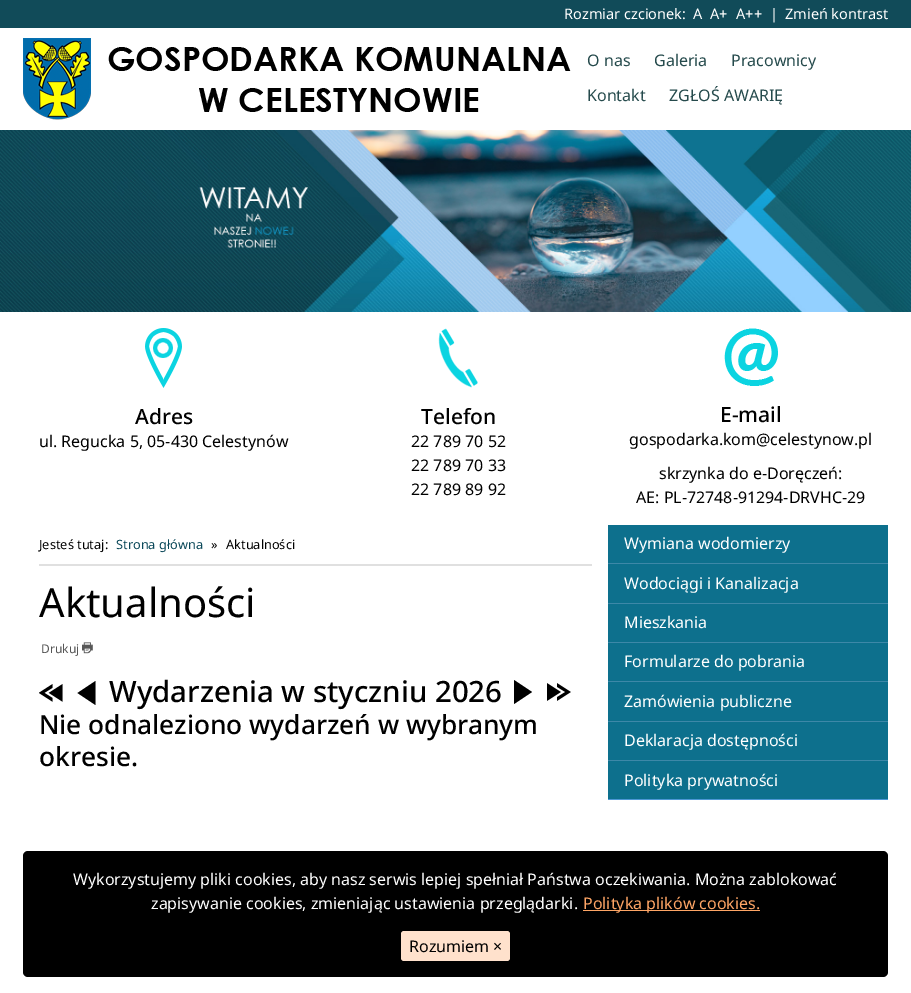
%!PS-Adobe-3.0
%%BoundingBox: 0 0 911 993
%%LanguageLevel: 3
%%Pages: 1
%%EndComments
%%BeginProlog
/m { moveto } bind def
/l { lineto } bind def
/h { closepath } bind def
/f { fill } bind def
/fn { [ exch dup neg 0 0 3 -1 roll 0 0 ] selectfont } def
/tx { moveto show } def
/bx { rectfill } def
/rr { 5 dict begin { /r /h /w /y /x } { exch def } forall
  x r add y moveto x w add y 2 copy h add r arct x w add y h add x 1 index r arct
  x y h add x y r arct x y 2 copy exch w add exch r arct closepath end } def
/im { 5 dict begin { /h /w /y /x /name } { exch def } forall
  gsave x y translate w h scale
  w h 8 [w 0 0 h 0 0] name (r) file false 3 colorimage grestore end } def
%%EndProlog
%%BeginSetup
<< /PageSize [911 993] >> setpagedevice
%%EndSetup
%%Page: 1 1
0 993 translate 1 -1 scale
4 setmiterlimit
1 setgray
0 0 911 993 bx
0.067 0.294 0.349 setrgbcolor
0 0 911 28 bx
/NotoSans-Regular 14.5 fn
1 setgray
(Rozmiar czcionek:) 564 19 tx
(A) 693 19 tx
(A+) 710 19 tx
(A++) 736 19 tx
(|) 770 19 tx
(Zmień kontrast) 785 19 tx
(image0.raw) 23 38 548 82 im
/NotoSans-Regular 16 fn
0.145 0.29 0.298 setrgbcolor
(O nas) 587 66 tx
(Galeria) 654 66 tx
(Pracownicy) 731 66 tx
(Kontakt) 587 101 tx
(ZGŁOŚ AWARIĘ) 669 101 tx
(image1.raw) 0 130 911 182 im
(image2.raw) 145 328 37 60 im
/NotoSans-Medium 21 fn
0 setgray
(Adres) 135 424 tx
/NotoSans-Regular 16 fn
(ul. Regucka 5, 05-430 Celestynów) 39 447 tx
(image3.raw) 438 328 40 60 im
/NotoSans-Medium 21 fn
(Telefon) 421 424 tx
/NotoSans-Regular 16 fn
(22 789 70 52) 411 447 tx
(22 789 70 33) 411 471 tx
(22 789 89 92) 411 495 tx
(image4.raw) 724 328 54 58 im
/NotoSans-Medium 21 fn
(E-mail) 720 422 tx
/NotoSans-Regular 16 fn
(gospodarka.kom@celestynow.pl) 629 445 tx
(skrzynka do e-Doręczeń:) 659 479 tx
(AE: PL-72748-91294-DRVHC-29) 636 503 tx
0.878 setgray
39 564 553 2 bx
/NotoSans-Regular 12.75 fn
0 setgray
(Jesteś tutaj:) 39 549 tx
0.047 0.286 0.353 setrgbcolor
(Strona główna) 116 549 tx
0 setgray
(») 211 549 tx
(Aktualności) 226 549 tx
/NotoSans-Regular 40 fn
(Aktualności) 39 617 tx
/NotoSans-Regular 12 fn
0.341 setgray
(Drukuj) 41 653 tx
(image5.raw) 82 642 11 12 im
(image6.raw) 39 684 24 18 im
0 setgray
77.5 693 m 95.5 681 l 95.5 705 l h f
/NotoSans-Medium 29.4 fn
(Wydarzenia w styczniu 2026) 109 702 tx
532 692 m 514 704 l 514 680 l h f
(image7.raw) 547 683 24 18 im
/NotoSans-Medium 26.25 fn
(Nie odnaleziono wydarzeń w wybranym) 39 734 tx
(okresie.) 39 766 tx
0.051 0.439 0.553 setrgbcolor
608 525 280 274 bx
0.239 0.533 0.659 setrgbcolor
608 563 280 1 bx
/NotoSans-Regular 16 fn
1 setgray
(Wymiana wodomierzy) 624 549 tx
0.239 0.533 0.659 setrgbcolor
608 603 280 1 bx
1 setgray
(Wodociągi i Kanalizacja) 624 589 tx
0.239 0.533 0.659 setrgbcolor
608 642 280 1 bx
1 setgray
(Mieszkania) 624 628 tx
0.239 0.533 0.659 setrgbcolor
608 681 280 1 bx
1 setgray
(Formularze do pobrania) 624 667 tx
0.239 0.533 0.659 setrgbcolor
608 721 280 1 bx
1 setgray
(Zamówienia publiczne) 624 707 tx
0.239 0.533 0.659 setrgbcolor
608 760 280 1 bx
1 setgray
(Deklaracja dostępności) 624 746 tx
(Polityka prywatności) 624 786 tx
0.294 0.592 0.835 setrgbcolor
608 799 280 1 bx
0 setgray
23 851 865 126 5 rr f
1 setgray
(Wykorzystujemy pliki cookies, aby nasz serwis lepiej spełniał Państwa oczekiwania. Można zablokować) 73 885 tx
(zapisywanie cookies, zmieniając ustawienia przeglądarki.) 151 909 tx
1 0.651 0.4 setrgbcolor
583 910 177 1 bx
(Polityka plików cookies.) 583 909 tx
1 0.882 0.8 setrgbcolor
401 931 109 30 3 rr f
0 setgray
(Rozumiem ×) 409 952 tx
showpage
%%EOF
